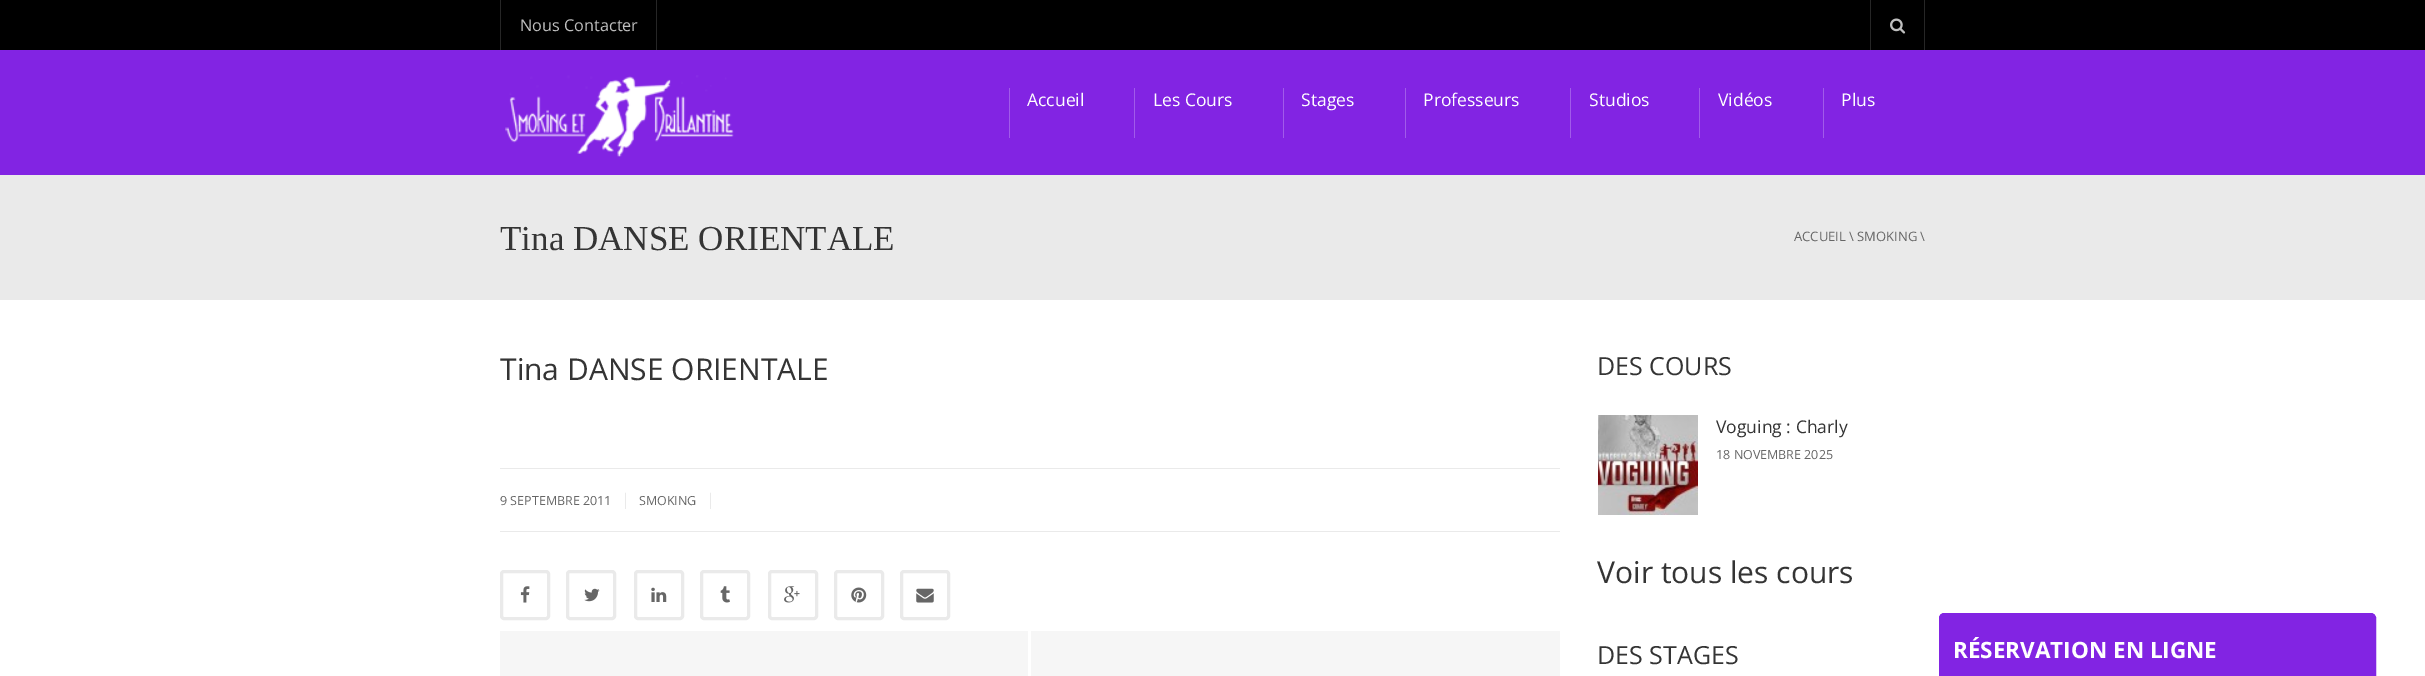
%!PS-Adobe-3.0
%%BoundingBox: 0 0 2425 676
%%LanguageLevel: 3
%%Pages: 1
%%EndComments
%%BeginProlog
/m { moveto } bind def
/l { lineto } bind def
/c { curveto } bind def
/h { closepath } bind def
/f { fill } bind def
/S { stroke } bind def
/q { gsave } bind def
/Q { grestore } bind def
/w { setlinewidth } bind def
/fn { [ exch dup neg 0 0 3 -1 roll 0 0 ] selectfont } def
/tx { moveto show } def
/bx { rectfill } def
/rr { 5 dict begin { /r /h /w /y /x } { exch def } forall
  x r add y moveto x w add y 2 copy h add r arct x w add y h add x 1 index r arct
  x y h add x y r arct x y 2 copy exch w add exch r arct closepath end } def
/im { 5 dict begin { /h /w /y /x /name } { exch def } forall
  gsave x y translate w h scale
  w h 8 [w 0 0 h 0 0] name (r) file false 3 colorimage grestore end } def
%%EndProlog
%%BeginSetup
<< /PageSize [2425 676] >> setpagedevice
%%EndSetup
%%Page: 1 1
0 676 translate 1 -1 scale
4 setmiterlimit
1 setgray
0 0 2425 676 bx
0 setgray
0 0 2425 50 bx
0.149 setgray
656 0 1 50 bx
500 0 1 50 bx
/OpenSans-Regular 16.25 fn
0.749 setgray
(Nous Contacter) 520 31 tx
0.149 setgray
1924 0 1 50 bx
1870 0 1 50 bx
(image0.raw) 1890 18 16 16 im
0.51 0.141 0.89 setrgbcolor
0 50 2425 125 bx
(image1.raw) 505 75 229 82 im
0.631 0.357 0.918 setrgbcolor
1009 88 1 50 bx
/OpenSans-Regular 17.5 fn
1 setgray
(Accueil) 1027 106 tx
0.631 0.357 0.918 setrgbcolor
1134 88 1 50 bx
1 setgray
(Les Cours) 1153 106 tx
0.631 0.357 0.918 setrgbcolor
1283 88 1 50 bx
1 setgray
(Stages) 1301 106 tx
0.631 0.357 0.918 setrgbcolor
1405 88 1 50 bx
1 setgray
(Professeurs) 1423 106 tx
0.631 0.357 0.918 setrgbcolor
1570 88 1 50 bx
1 setgray
(Studios) 1589 106 tx
0.631 0.357 0.918 setrgbcolor
1699 88 1 50 bx
1 setgray
(Vidéos) 1718 106 tx
0.631 0.357 0.918 setrgbcolor
1823 88 1 50 bx
1 setgray
(Plus) 1841 106 tx
0.918 setgray
0 175 2425 125 bx
/LiberationSerif-Regular 35 fn
0.204 setgray
(Tina DANSE ORIENTALE) 500 250 tx
/OpenSans-Regular 13 fn
0.4 setgray
(ACCUEIL \\ SMOKING \\) 1794 241 tx
/OpenSans-Regular 30 fn
0.204 setgray
(Tina DANSE ORIENTALE) 500 380 tx
0.918 setgray
500 468 1060 1 bx
500 531 1060 1 bx
/OpenSans-Regular 12.5 fn
0.4 setgray
(9 SEPTEMBRE 2011) 500 505 tx
/OpenSans-Regular 16.25 fn
0.918 setgray
(|) 621 505 tx
/OpenSans-Regular 12.5 fn
0.4 setgray
(SMOKING) 639 505 tx
/OpenSans-Regular 16.25 fn
0.918 setgray
(|) 706 505 tx
3 w
501.5 571.5 47 47 2.5 rr S
(image2.raw) 520 586 10 17 im
567.5 571.5 47 47 2.5 rr S
(image3.raw) 584 588 16 14 im
635.5 571.5 47 47 2.5 rr S
(image4.raw) 651 587 16 15 im
701.5 571.5 47 47 2.5 rr S
(image5.raw) 720 586 10 17 im
769.5 571.5 47 47 2.5 rr S
(image6.raw) 784 586 16 17 im
835.5 571.5 47 47 2.5 rr S
(image7.raw) 851 587 16 16 im
901.5 571.5 47 47 2.5 rr S
(image8.raw) 916 588 18 15 im
0.965 setgray
500 631 1060 45 bx
1 setgray
1028 631 3 45 bx
/OpenSans-Regular 25 fn
0.204 setgray
(DES COURS) 1597 375 tx
(image9.raw) 1598 415 100 100 im
/OpenSans-Regular 17.5 fn
(Voguing : Charly) 1716 433 tx
/OpenSans-Regular 12.5 fn
0.4 setgray
(18 NOVEMBRE 2025) 1716 459 tx
/OpenSans-Regular 30 fn
0.204 setgray
(Voir tous les cours) 1597 583 tx
/OpenSans-Regular 25 fn
(DES STAGES) 1597 664 tx
0.51 0.141 0.89 setrgbcolor
1944 613.5 m 2371 613.5 l 2373.5 613.5 2375.5 615.5 2375.5 618 c 2375.5 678.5 l 1939.5 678.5 l 1939.5 618 l 1939.5 615.5 1941.5 613.5 1944 613.5 c h q f Q
1 w
S
/OpenSans-Bold 22.5 fn
1 setgray
(RÉSERVATION EN LIGNE) 1953 658 tx
showpage
%%EOF
